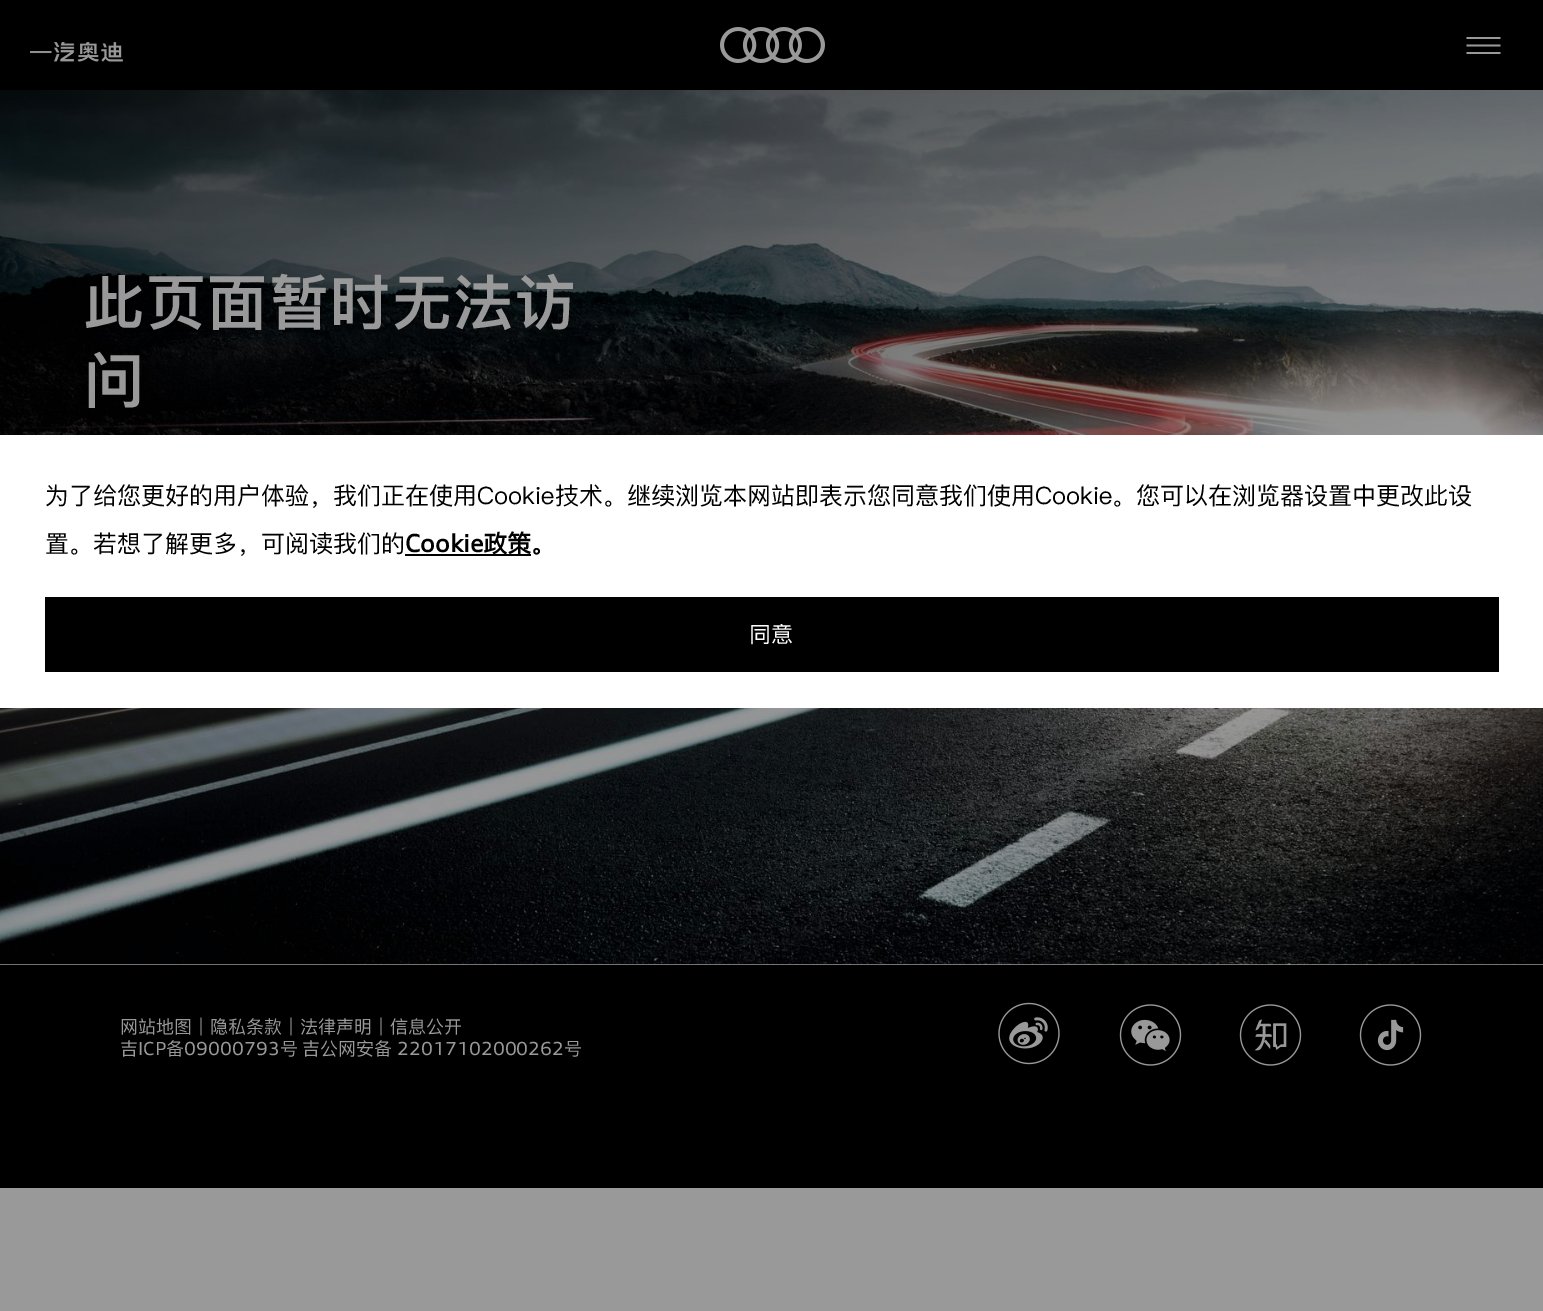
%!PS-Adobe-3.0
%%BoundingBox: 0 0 1543 1311
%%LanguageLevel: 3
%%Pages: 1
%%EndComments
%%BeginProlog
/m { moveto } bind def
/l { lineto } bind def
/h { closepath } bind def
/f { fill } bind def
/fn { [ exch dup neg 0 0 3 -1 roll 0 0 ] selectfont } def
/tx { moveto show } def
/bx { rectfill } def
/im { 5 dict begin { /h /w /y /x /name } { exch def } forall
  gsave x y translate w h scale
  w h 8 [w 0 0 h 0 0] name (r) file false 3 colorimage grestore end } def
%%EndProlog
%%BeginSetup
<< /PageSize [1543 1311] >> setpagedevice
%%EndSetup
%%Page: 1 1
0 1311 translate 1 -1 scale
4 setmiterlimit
0.6 setgray
0 0 1543 1311 bx
(image0.raw) 0 90 1543 875 im
/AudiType-Bold 60 fn
84 324 m 1.5 0 (此页面暂时无法访) ashow
84 402 m 1.5 0 (问) ashow
0 setgray
0 0 1543 90 bx
(image1.raw) 30 42 93 20 im
(image2.raw) 720 27 105 36 im
0.6 setgray
1466.5 54 m 1500.5 54 l 1500.5 52 l 1466.5 52 l h 1466.5 37 m 1466.5 39 l 1500.5 39 l 1500.5 37 l h 1466.5 46.5 m 1500.5 46.5 l 1500.5 44.5 l 1466.5 44.5 l h f
1 setgray
0 435 1543 273 bx
/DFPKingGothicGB-Regular 24 fn
0 setgray
(为了给您更好的用户体验，我们正在使用Cookie技术。继续浏览本网站即表示您同意我们使用Cookie。您可以在浏览器设置中更改此设) 45 504 tx
(置。若想了解更多，可阅读我们的) 45 552 tx
/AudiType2-Bold 24 fn
(Cookie) 405 552 tx
405 554 126 2 bx
/DFPKingGothicGB-Bold 24 fn
(政策。) 483 552 tx
45 597 1454 75 bx
/DFPKingGothicGB-Regular 22 fn
1 setgray
(同意) 749 642 tx
0 setgray
0 965 1543 223 bx
/DFPKingGothicGB-Regular 18 fn
0.6 setgray
(网站地图｜隐私条款｜法律声明｜信息公开) 120 1033 tx
(吉) 120 1055 tx
/AudiType-Regular 18 fn
(ICP) 138 1055 tx
/DFPKingGothicGB-Regular 18 fn
(备) 166 1055 tx
/AudiType-Regular 18 fn
(09000793) 184 1055 tx
/DFPKingGothicGB-Regular 18 fn
(号) 280 1055 tx
(吉公网安备) 302 1055 tx
/AudiType-Regular 18 fn
(22017102000262) 397 1055 tx
/DFPKingGothicGB-Regular 18 fn
(号) 564 1055 tx
(image3.raw) 998 1002 62 63 im
(image4.raw) 1119 1004 63 62 im
(image5.raw) 1239 1004 63 62 im
(image6.raw) 1359 1004 63 62 im
showpage
%%EOF
